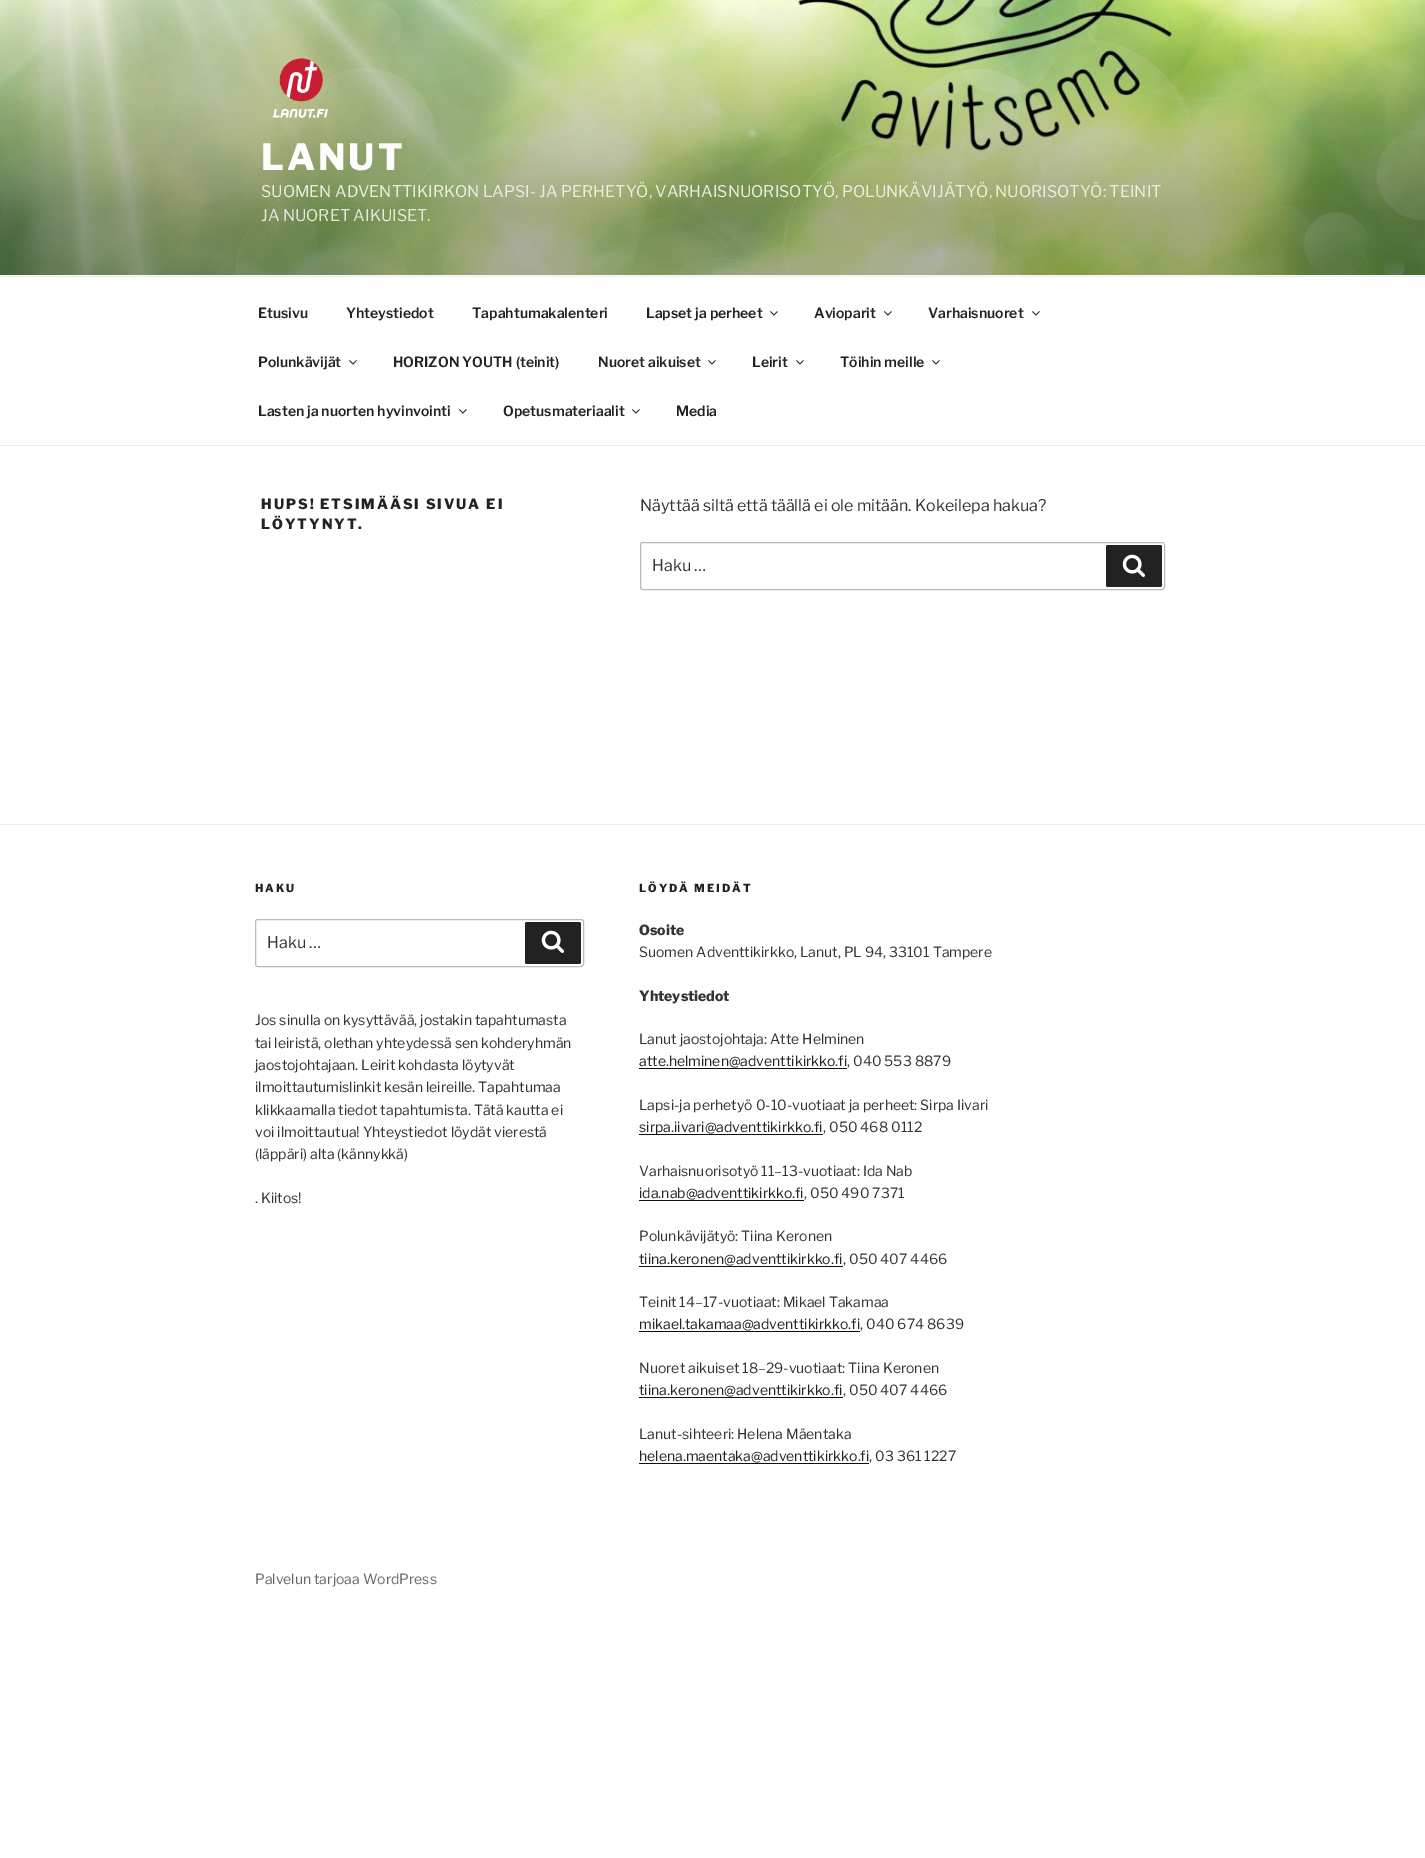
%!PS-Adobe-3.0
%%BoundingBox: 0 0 1425 1858
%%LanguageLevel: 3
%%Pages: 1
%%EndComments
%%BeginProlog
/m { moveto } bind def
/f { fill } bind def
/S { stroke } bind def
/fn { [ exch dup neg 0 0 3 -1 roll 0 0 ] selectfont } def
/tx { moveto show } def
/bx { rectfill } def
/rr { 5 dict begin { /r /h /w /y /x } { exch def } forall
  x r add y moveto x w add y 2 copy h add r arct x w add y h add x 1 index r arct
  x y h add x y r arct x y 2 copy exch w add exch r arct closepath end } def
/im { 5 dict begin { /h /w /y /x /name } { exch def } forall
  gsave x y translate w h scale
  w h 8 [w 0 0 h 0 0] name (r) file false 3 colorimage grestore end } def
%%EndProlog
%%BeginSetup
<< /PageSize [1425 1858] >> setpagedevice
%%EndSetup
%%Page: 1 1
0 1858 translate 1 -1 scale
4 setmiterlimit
1 setgray
0 0 1425 1858 bx
0.98 setgray
0 275 1425 1 bx
(image0.raw) 0 0 1425 275 im
(image1.raw) 272 58 56 60 im
/LibreFranklin-ExtraBold 36 fn
1 setgray
261 170 m 3 0 (LANUT) ashow
/LibreFranklin-Regular 16 fn
0.918 0.929 0.886 setrgbcolor
(SUOMEN ADVENTTIKIRKON LAPSI- JA PERHETYÖ, VARHAISNUORISOTYÖ, POLUNKÄVIJÄTYÖ, NUORISOTYÖ: TEINIT) 261 197 tx
0.894 0.914 0.867 setrgbcolor
(JA NUORET AIKUISET.) 261 221 tx
0.933 setgray
0 276 1425 1 bx
0 445 1425 1 bx
/LibreFranklin-SemiBold 14 fn
0.133 setgray
(Etusivu) 258 318 tx
(Yhteystiedot) 346 318 tx
(Tapahtumakalenteri) 472 318 tx
(Lapset ja perheet) 646 318 tx
(image2.raw) 770 311 8 5 im
(Avioparit) 814 318 tx
(image2.raw) 884 311 8 5 im
(Varhaisnuoret) 928 318 tx
(image2.raw) 1032 311 8 5 im
(Polunkävijät) 258 367 tx
(image2.raw) 349 360 8 5 im
(HORIZON YOUTH \(teinit\)) 393 367 tx
(Nuoret aikuiset) 598 367 tx
(image2.raw) 708 360 8 5 im
(Leirit) 752 367 tx
(image2.raw) 796 360 8 5 im
(Töihin meille) 840 367 tx
(image2.raw) 932 360 8 5 im
(Lasten ja nuorten hyvinvointi) 258 416 tx
(image2.raw) 459 409 8 5 im
(Opetusmateriaalit) 503 416 tx
(image2.raw) 632 409 8 5 im
(Media) 676 416 tx
/LibreFranklin-ExtraBold 14 fn
261 509 m 2 0 (HUPS! ETSIMÄÄSI SIVUA EI) ashow
261 529 m 2 0 (LÖYTYNYT.) ashow
/LibreFranklin-Regular 16 fn
0.2 setgray
(Näyttää siltä että täällä ei ole mitään. Kokeilepa hakua?) 640 511 tx
0.733 setgray
640.5 542.5 524 47 2.5 rr S
0.2 setgray
(Haku …) 652 571 tx
0.133 setgray
1106 545 56 42 2 rr f
(image3.raw) 1122 554 23 23 im
0.933 setgray
0 824 1425 1 bx
/LibreFranklin-ExtraBold 11 fn
0.133 setgray
255 892 m 2 0 (HAKU) ashow
0.733 setgray
255.5 919.5 328 47 2.5 rr S
/LibreFranklin-Regular 16 fn
0.2 setgray
(Haku …) 267 948 tx
0.133 setgray
525 922 56 42 2 rr f
(image3.raw) 541 930 23 23 im
/LibreFranklin-Regular 14 fn
0.2 setgray
(Jos sinulla on kysyttävää, jostakin tapahtumasta) 255 1025 tx
(tai leiristä, olethan yhteydessä sen kohderyhmän) 255 1048 tx
(jaostojohtajaan. Leirit kohdasta löytyvät) 255 1070 tx
(ilmoittautumislinkit kesän leireille. Tapahtumaa) 255 1092 tx
(klikkaamalla tiedot tapahtumista. Tätä kautta ei) 255 1115 tx
(voi ilmoittautua! Yhteystiedot löydät vierestä) 255 1137 tx
(\(läppäri\) alta \(kännykkä\)) 255 1159 tx
(. Kiitos!) 255 1203 tx
/LibreFranklin-ExtraBold 11 fn
0.133 setgray
639 892 m 2 0 (LÖYDÄ MEIDÄT) ashow
/LibreFranklin-ExtraBold 14 fn
0.2 setgray
(Osoite) 639 935 tx
/LibreFranklin-Regular 14 fn
(Suomen Adventtikirkko, Lanut, PL 94, 33101 Tampere) 639 957 tx
/LibreFranklin-ExtraBold 14 fn
(Yhteystiedot) 639 1001 tx
/LibreFranklin-Regular 14 fn
(Lanut jaostojohtaja: Atte Helminen) 639 1044 tx
0.133 setgray
(atte.helminen@adventtikirkko.fi) 639 1066 tx
0.059 setgray
639 1068 208 1 bx
0.2 setgray
(, 040 553 8879) 847 1066 tx
(Lapsi-ja perhetyö 0-10-vuotiaat ja perheet: Sirpa Iivari) 639 1110 tx
0.059 setgray
639 1134 184 1 bx
0.133 setgray
(sirpa.iivari@adventtikirkko.fi) 639 1132 tx
0.2 setgray
(, 050 468 0112) 823 1132 tx
(Varhaisnuorisotyö 11–13-vuotiaat: Ida Nab) 639 1176 tx
0.133 setgray
(ida.nab@adventtikirkko.fi) 639 1198 tx
0.059 setgray
639 1200 165 1 bx
0.2 setgray
(, 050 490 7371) 804 1198 tx
(Polunkävijätyö: Tiina Keronen) 639 1241 tx
0.133 setgray
(tiina.keronen@adventtikirkko.fi) 639 1264 tx
0.059 setgray
639 1266 204 1 bx
0.2 setgray
(, 050 407 4466) 843 1264 tx
(Teinit 14–17-vuotiaat: Mikael Takamaa) 639 1307 tx
0.133 setgray
(mikael.takamaa@adventtikirkko.fi) 639 1329 tx
0.059 setgray
639 1331 221 1 bx
0.2 setgray
(, 040 674 8639) 860 1329 tx
(Nuoret aikuiset 18–29-vuotiaat: Tiina Keronen) 639 1373 tx
0.133 setgray
(tiina.keronen@adventtikirkko.fi) 639 1395 tx
0.059 setgray
639 1397 204 1 bx
0.2 setgray
(, 050 407 4466) 843 1395 tx
(Lanut-sihteeri: Helena Mäentaka) 639 1439 tx
0.133 setgray
(helena.maentaka@adventtikirkko.fi) 639 1461 tx
0.059 setgray
639 1463 230 1 bx
0.2 setgray
(, 03 361 1227) 869 1461 tx
0.4 setgray
(Palvelun tarjoaa WordPress) 255 1584 tx
showpage
%%EOF
